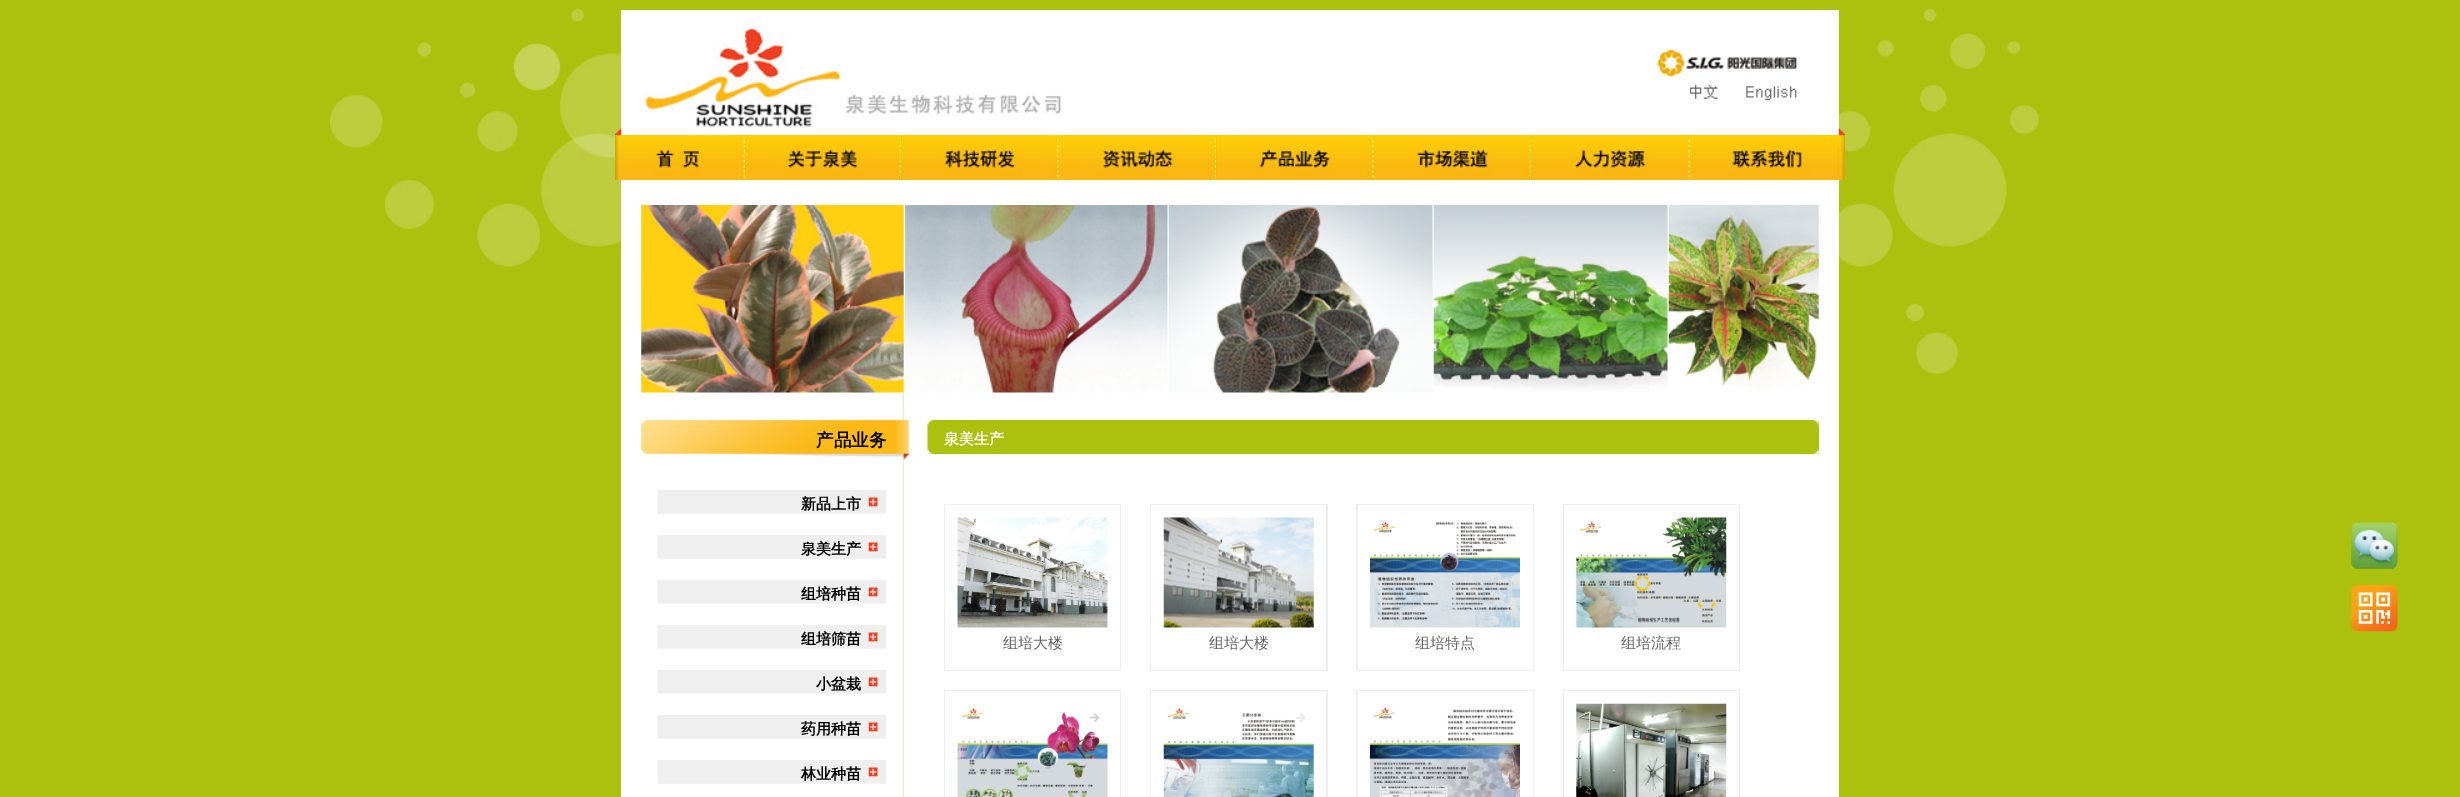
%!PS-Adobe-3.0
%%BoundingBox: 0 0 2460 797
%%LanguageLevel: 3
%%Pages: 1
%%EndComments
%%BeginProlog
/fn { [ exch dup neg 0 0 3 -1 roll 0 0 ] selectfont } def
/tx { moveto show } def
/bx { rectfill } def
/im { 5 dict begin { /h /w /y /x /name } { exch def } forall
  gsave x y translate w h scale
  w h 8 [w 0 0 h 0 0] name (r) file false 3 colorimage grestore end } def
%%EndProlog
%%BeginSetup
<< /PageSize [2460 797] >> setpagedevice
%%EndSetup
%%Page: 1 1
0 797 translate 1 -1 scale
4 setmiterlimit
0.675 0.757 0.055 setrgbcolor
0 0 2460 797 bx
(image0.raw) 330 8 1709 366 im
1 setgray
621 10 1218 125 bx
(image1.raw) 643 27 419 102 im
(image2.raw) 1657 48 141 29 im
(image3.raw) 1689 84 29 15 im
(image4.raw) 1746 86 51 15 im
621 180 1218 617 bx
(image7.raw) 621 135 124 45 im
(image5.raw) 615 128 7 52 im
(image14.raw) 1690 135 149 45 im
(image6.raw) 1838 128 7 52 im
(image8.raw) 745 135 157 45 im
(image9.raw) 901 135 158 45 im
(image10.raw) 1058 135 159 45 im
(image11.raw) 1216 135 158 45 im
(image12.raw) 1373 135 159 45 im
(image13.raw) 1531 135 159 45 im
(image16.raw) 902 392 2 405 im
(image17.raw) 641 392 268 67 im
(image15.raw) 641 205 1178 188 im
/WenQuanYiZenHei-Bold 17.5 fn
0 setgray
(产品业务) 816 446 tx
(image18.raw) 657 490 230 24 im
/WenQuanYiZenHei-Bold 15 fn
(新品上市) 801 509 tx
(image18.raw) 657 535 230 24 im
(泉美生产) 801 554 tx
(image19.raw) 657 580 230 24 im
(组培种苗) 801 599 tx
(image18.raw) 657 625 230 24 im
(组培筛苗) 801 644 tx
(image18.raw) 657 670 230 24 im
(小盆栽) 816 689 tx
(image18.raw) 657 715 230 24 im
(药用种苗) 801 734 tx
(image18.raw) 657 760 230 24 im
(林业种苗) 801 779 tx
0.675 0.757 0.055 setrgbcolor
928 420 891 34 bx
(image20.raw) 927 420 7 34 im
1 setgray
(泉美生产) 944 444 tx
(image21.raw) 1812 420 7 34 im
0.933 setgray
944 504 177 167 bx
1 setgray
945 505 175 165 bx
(image22.raw) 957 517 151 111 im
/WenQuanYiZenHei-Medium 15 fn
0.4 setgray
(组培大楼) 1003 648 tx
0.933 setgray
1150 504 178 167 bx
1 setgray
1151 505 175 165 bx
(image23.raw) 1163 517 151 111 im
0.4 setgray
(组培大楼) 1209 648 tx
0.933 setgray
1356 504 178 167 bx
1 setgray
1358 505 175 165 bx
(image24.raw) 1370 521 150 107 im
0.4 setgray
(组培特点) 1415 648 tx
0.933 setgray
1563 504 177 167 bx
1 setgray
1564 505 175 165 bx
(image25.raw) 1576 517 151 111 im
0.4 setgray
(组培流程) 1621 648 tx
0.933 setgray
944 690 177 107 bx
1 setgray
945 691 175 106 bx
(image26.raw) 957 708 151 89 im
0.933 setgray
1150 690 178 107 bx
1 setgray
1151 691 175 106 bx
(image27.raw) 1163 708 151 89 im
0.933 setgray
1356 690 178 107 bx
1 setgray
1358 691 175 106 bx
(image28.raw) 1370 707 150 90 im
0.933 setgray
1563 690 177 107 bx
1 setgray
1564 691 175 106 bx
(image29.raw) 1576 703 151 94 im
(image30.raw) 2351 522 47 47 im
(image31.raw) 2351 585 47 47 im
showpage
%%EOF
